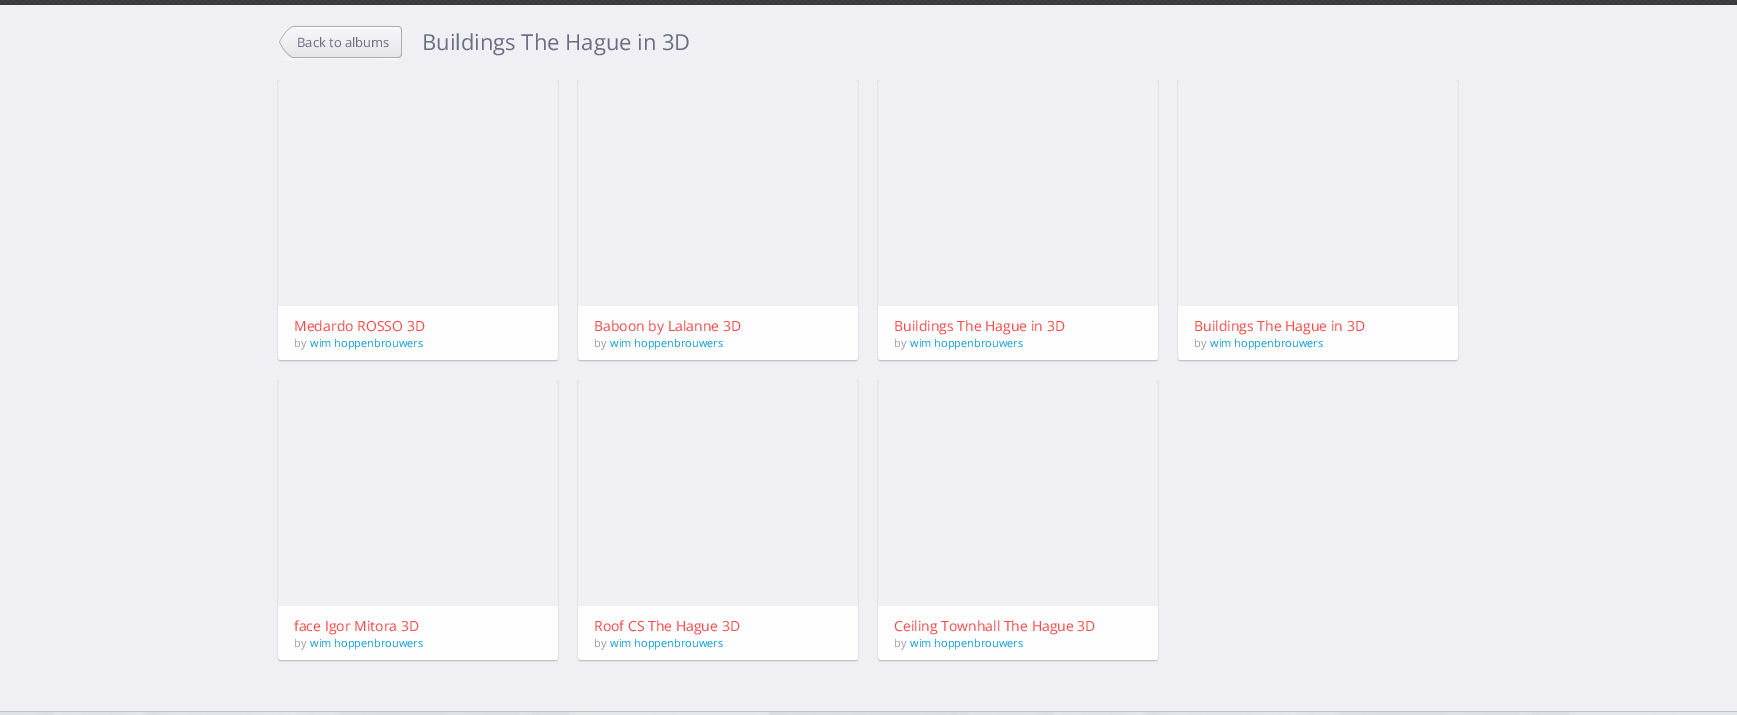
%!PS-Adobe-3.0
%%BoundingBox: 0 0 1737 715
%%LanguageLevel: 3
%%Pages: 1
%%EndComments
%%BeginProlog
/m { moveto } bind def
/l { lineto } bind def
/c { curveto } bind def
/h { closepath } bind def
/f { fill } bind def
/q { gsave } bind def
/Q { grestore } bind def
/fn { [ exch dup neg 0 0 3 -1 roll 0 0 ] selectfont } def
/tx { moveto show } def
/bx { rectfill } def
/al { dup .setfillconstantalpha .setstrokeconstantalpha } def
/rr { 5 dict begin { /r /h /w /y /x } { exch def } forall
  x r add y moveto x w add y 2 copy h add r arct x w add y h add x 1 index r arct
  x y h add x y r arct x y 2 copy exch w add exch r arct closepath end } def
/im { 5 dict begin { /h /w /y /x /name } { exch def } forall
  gsave x y translate w h scale
  w h 8 [w 0 0 h 0 0] name (r) file false 3 colorimage grestore end } def
%%EndProlog
%%BeginSetup
<< /PageSize [1737 715] /PageUsesTransparency true >> setpagedevice
%%EndSetup
%%Page: 1 1
0 .pushpdf14devicefilter
0 715 translate 1 -1 scale
4 setmiterlimit
0.941 0.941 0.957 setrgbcolor
0 0 1737 715 bx
(image0.raw) 0 0 1737 5 im
0.973 setgray
279 54 m 279 64 299 59 302 59 c 379 59 l 382 59 402 64 402 54 c 402 56 400 58 398 58 c 283 58 l 281 58 279 56 279 54 c h f
q
279 26 123 32 4 rr clip newpath
q 281 27 m 402 27 l 402 57 l 281 57 l h clip newpath
<< /ShadingType 2 /ColorSpace /DeviceRGB /Coords [340 27 340 57] /Extend [true true] /Function << /FunctionType 2 /Domain [0 1] /C0 [0.973 0.973 0.988] /C1 [0.902 0.902 0.918] /N 1 >> >> shfill Q
Q
1 setgray
283 28 m 398 28 l 400 28 401 29 401 31 c 401 29 400 27 398 27 c 281 27 l 280 28 279 29 279 31 c 279 29 281 28 283 28 c h f
0.675 0.675 0.69 setrgbcolor
283 26 m 398 26 l 400 26 402 28 402 30 c 402 54 l 402 56 400 58 398 58 c 283 58 l 281 58 279 56 279 54 c 279 30 l 279 28 281 26 283 26 c h 283 27 m 398 27 l 400 27 401 28 401 30 c 401 54 l 401 56 400 57 398 57 c 283 57 l 281 57 279 56 279 54 c 279 30 l 279 28 281 27 283 27 c h eofill
(image1.raw) 279 26 13 33 im
/OpenSans-Regular 13 fn
0.424 0.424 0.51 setrgbcolor
(Back to albums) 297 47 tx
/OpenSans-Regular 22 fn
(Buildings The Hague in 3D) 422 50 tx
0.882 0.882 0.898 setrgbcolor
280 80 m 278 80 277 81 277 83 c 277 357 l 277 359 278 360 280 360 c 281 360 l 279 360 278 359 278 357 c 278 83 l 278 81 279 80 281 80 c h f
278 357 m 278 359 l 278 361 279 362 281 362 c 555 362 l 557 362 558 361 558 359 c 558 357 l 558 359 557 360 555 360 c 281 360 l 279 360 278 359 278 357 c h f
0.765 0.765 0.776 setrgbcolor
278 357 m 278 358 l 278 360 279 361 281 361 c 555 361 l 557 361 558 360 558 358 c 558 357 l 558 359 557 360 555 360 c 281 360 l 279 360 278 359 278 357 c h f
0.882 0.882 0.898 setrgbcolor
555 360 m 556 360 l 558 360 559 359 559 357 c 559 83 l 559 81 558 80 556 80 c 555 80 l 557 80 558 81 558 83 c 558 357 l 558 359 557 360 555 360 c h f
0.9 al
1 setgray
278 306 m 558 306 l 558 357 l 558 358.5 556.5 360 555 360 c 281 360 l 279.5 360 278 358.5 278 357 c h f
/OpenSans-Regular 14 fn
1 al
0.976 0.29 0.29 setrgbcolor
(Medardo ROSSO 3D) 294 331 tx
/OpenSans-Regular 11 fn
0.6 setgray
(by) 294 347 tx
0.016 0.612 0.859 setrgbcolor
(wim hoppenbrouwers) 310 347 tx
0.882 0.882 0.898 setrgbcolor
580 80 m 578 80 577 81 577 83 c 577 357 l 577 359 578 360 580 360 c 581 360 l 579 360 578 359 578 357 c 578 83 l 578 81 579 80 581 80 c h f
578 357 m 578 359 l 578 361 579 362 581 362 c 855 362 l 857 362 858 361 858 359 c 858 357 l 858 359 857 360 855 360 c 581 360 l 579 360 578 359 578 357 c h f
0.765 0.765 0.776 setrgbcolor
578 357 m 578 358 l 578 360 579 361 581 361 c 855 361 l 857 361 858 360 858 358 c 858 357 l 858 359 857 360 855 360 c 581 360 l 579 360 578 359 578 357 c h f
0.882 0.882 0.898 setrgbcolor
855 360 m 856 360 l 858 360 859 359 859 357 c 859 83 l 859 81 858 80 856 80 c 855 80 l 857 80 858 81 858 83 c 858 357 l 858 359 857 360 855 360 c h f
0.9 al
1 setgray
578 306 m 858 306 l 858 357 l 858 358.5 856.5 360 855 360 c 581 360 l 579.5 360 578 358.5 578 357 c h f
/OpenSans-Regular 14 fn
1 al
0.976 0.29 0.29 setrgbcolor
(Baboon by Lalanne 3D) 594 331 tx
/OpenSans-Regular 11 fn
0.6 setgray
(by) 594 347 tx
0.016 0.612 0.859 setrgbcolor
(wim hoppenbrouwers) 610 347 tx
0.882 0.882 0.898 setrgbcolor
880 80 m 878 80 877 81 877 83 c 877 357 l 877 359 878 360 880 360 c 881 360 l 879 360 878 359 878 357 c 878 83 l 878 81 879 80 881 80 c h f
878 357 m 878 359 l 878 361 879 362 881 362 c 1155 362 l 1157 362 1158 361 1158 359 c 1158 357 l 1158 359 1157 360 1155 360 c 881 360 l 879 360 878 359 878 357 c h f
0.765 0.765 0.776 setrgbcolor
878 357 m 878 358 l 878 360 879 361 881 361 c 1155 361 l 1157 361 1158 360 1158 358 c 1158 357 l 1158 359 1157 360 1155 360 c 881 360 l 879 360 878 359 878 357 c h f
0.882 0.882 0.898 setrgbcolor
1155 360 m 1156 360 l 1158 360 1159 359 1159 357 c 1159 83 l 1159 81 1158 80 1156 80 c 1155 80 l 1157 80 1158 81 1158 83 c 1158 357 l 1158 359 1157 360 1155 360 c h f
0.9 al
1 setgray
878 306 m 1158 306 l 1158 357 l 1158 358.5 1156.5 360 1155 360 c 881 360 l 879.5 360 878 358.5 878 357 c h f
/OpenSans-Regular 14 fn
1 al
0.976 0.29 0.29 setrgbcolor
(Buildings The Hague in 3D) 894 331 tx
/OpenSans-Regular 11 fn
0.6 setgray
(by) 894 347 tx
0.016 0.612 0.859 setrgbcolor
(wim hoppenbrouwers) 910 347 tx
0.882 0.882 0.898 setrgbcolor
1180 80 m 1178 80 1177 81 1177 83 c 1177 357 l 1177 359 1178 360 1180 360 c 1181 360 l 1179 360 1178 359 1178 357 c 1178 83 l 1178 81 1179 80 1181 80 c h f
1178 357 m 1178 359 l 1178 361 1179 362 1181 362 c 1455 362 l 1457 362 1458 361 1458 359 c 1458 357 l 1458 359 1457 360 1455 360 c 1181 360 l 1179 360 1178 359 1178 357 c h f
0.765 0.765 0.776 setrgbcolor
1178 357 m 1178 358 l 1178 360 1179 361 1181 361 c 1455 361 l 1457 361 1458 360 1458 358 c 1458 357 l 1458 359 1457 360 1455 360 c 1181 360 l 1179 360 1178 359 1178 357 c h f
0.882 0.882 0.898 setrgbcolor
1455 360 m 1456 360 l 1458 360 1459 359 1459 357 c 1459 83 l 1459 81 1458 80 1456 80 c 1455 80 l 1457 80 1458 81 1458 83 c 1458 357 l 1458 359 1457 360 1455 360 c h f
0.9 al
1 setgray
1178 306 m 1458 306 l 1458 357 l 1458 358.5 1456.5 360 1455 360 c 1181 360 l 1179.5 360 1178 358.5 1178 357 c h f
/OpenSans-Regular 14 fn
1 al
0.976 0.29 0.29 setrgbcolor
(Buildings The Hague in 3D) 1194 331 tx
/OpenSans-Regular 11 fn
0.6 setgray
(by) 1194 347 tx
0.016 0.612 0.859 setrgbcolor
(wim hoppenbrouwers) 1210 347 tx
0.882 0.882 0.898 setrgbcolor
280 380 m 278 380 277 381 277 383 c 277 657 l 277 659 278 660 280 660 c 281 660 l 279 660 278 659 278 657 c 278 383 l 278 381 279 380 281 380 c h f
278 657 m 278 659 l 278 661 279 662 281 662 c 555 662 l 557 662 558 661 558 659 c 558 657 l 558 659 557 660 555 660 c 281 660 l 279 660 278 659 278 657 c h f
0.765 0.765 0.776 setrgbcolor
278 657 m 278 658 l 278 660 279 661 281 661 c 555 661 l 557 661 558 660 558 658 c 558 657 l 558 659 557 660 555 660 c 281 660 l 279 660 278 659 278 657 c h f
0.882 0.882 0.898 setrgbcolor
555 660 m 556 660 l 558 660 559 659 559 657 c 559 383 l 559 381 558 380 556 380 c 555 380 l 557 380 558 381 558 383 c 558 657 l 558 659 557 660 555 660 c h f
0.9 al
1 setgray
278 606 m 558 606 l 558 657 l 558 658.5 556.5 660 555 660 c 281 660 l 279.5 660 278 658.5 278 657 c h f
/OpenSans-Regular 14 fn
1 al
0.976 0.29 0.29 setrgbcolor
(face Igor Mitora 3D) 294 631 tx
/OpenSans-Regular 11 fn
0.6 setgray
(by) 294 647 tx
0.016 0.612 0.859 setrgbcolor
(wim hoppenbrouwers) 310 647 tx
0.882 0.882 0.898 setrgbcolor
580 380 m 578 380 577 381 577 383 c 577 657 l 577 659 578 660 580 660 c 581 660 l 579 660 578 659 578 657 c 578 383 l 578 381 579 380 581 380 c h f
578 657 m 578 659 l 578 661 579 662 581 662 c 855 662 l 857 662 858 661 858 659 c 858 657 l 858 659 857 660 855 660 c 581 660 l 579 660 578 659 578 657 c h f
0.765 0.765 0.776 setrgbcolor
578 657 m 578 658 l 578 660 579 661 581 661 c 855 661 l 857 661 858 660 858 658 c 858 657 l 858 659 857 660 855 660 c 581 660 l 579 660 578 659 578 657 c h f
0.882 0.882 0.898 setrgbcolor
855 660 m 856 660 l 858 660 859 659 859 657 c 859 383 l 859 381 858 380 856 380 c 855 380 l 857 380 858 381 858 383 c 858 657 l 858 659 857 660 855 660 c h f
0.9 al
1 setgray
578 606 m 858 606 l 858 657 l 858 658.5 856.5 660 855 660 c 581 660 l 579.5 660 578 658.5 578 657 c h f
/OpenSans-Regular 14 fn
1 al
0.976 0.29 0.29 setrgbcolor
(Roof CS The Hague 3D) 594 631 tx
/OpenSans-Regular 11 fn
0.6 setgray
(by) 594 647 tx
0.016 0.612 0.859 setrgbcolor
(wim hoppenbrouwers) 610 647 tx
0.882 0.882 0.898 setrgbcolor
880 380 m 878 380 877 381 877 383 c 877 657 l 877 659 878 660 880 660 c 881 660 l 879 660 878 659 878 657 c 878 383 l 878 381 879 380 881 380 c h f
878 657 m 878 659 l 878 661 879 662 881 662 c 1155 662 l 1157 662 1158 661 1158 659 c 1158 657 l 1158 659 1157 660 1155 660 c 881 660 l 879 660 878 659 878 657 c h f
0.765 0.765 0.776 setrgbcolor
878 657 m 878 658 l 878 660 879 661 881 661 c 1155 661 l 1157 661 1158 660 1158 658 c 1158 657 l 1158 659 1157 660 1155 660 c 881 660 l 879 660 878 659 878 657 c h f
0.882 0.882 0.898 setrgbcolor
1155 660 m 1156 660 l 1158 660 1159 659 1159 657 c 1159 383 l 1159 381 1158 380 1156 380 c 1155 380 l 1157 380 1158 381 1158 383 c 1158 657 l 1158 659 1157 660 1155 660 c h f
0.9 al
1 setgray
878 606 m 1158 606 l 1158 657 l 1158 658.5 1156.5 660 1155 660 c 881 660 l 879.5 660 878 658.5 878 657 c h f
/OpenSans-Regular 14 fn
1 al
0.976 0.29 0.29 setrgbcolor
(Ceiling Townhall The Hague 3D) 894 631 tx
/OpenSans-Regular 11 fn
0.6 setgray
(by) 894 647 tx
0.016 0.612 0.859 setrgbcolor
(wim hoppenbrouwers) 910 647 tx
(image2.raw) 0 712 1737 3 im
0.745 0.761 0.773 setrgbcolor
0 711 1737 1 bx
.poppdf14devicefilter showpage
%%EOF
